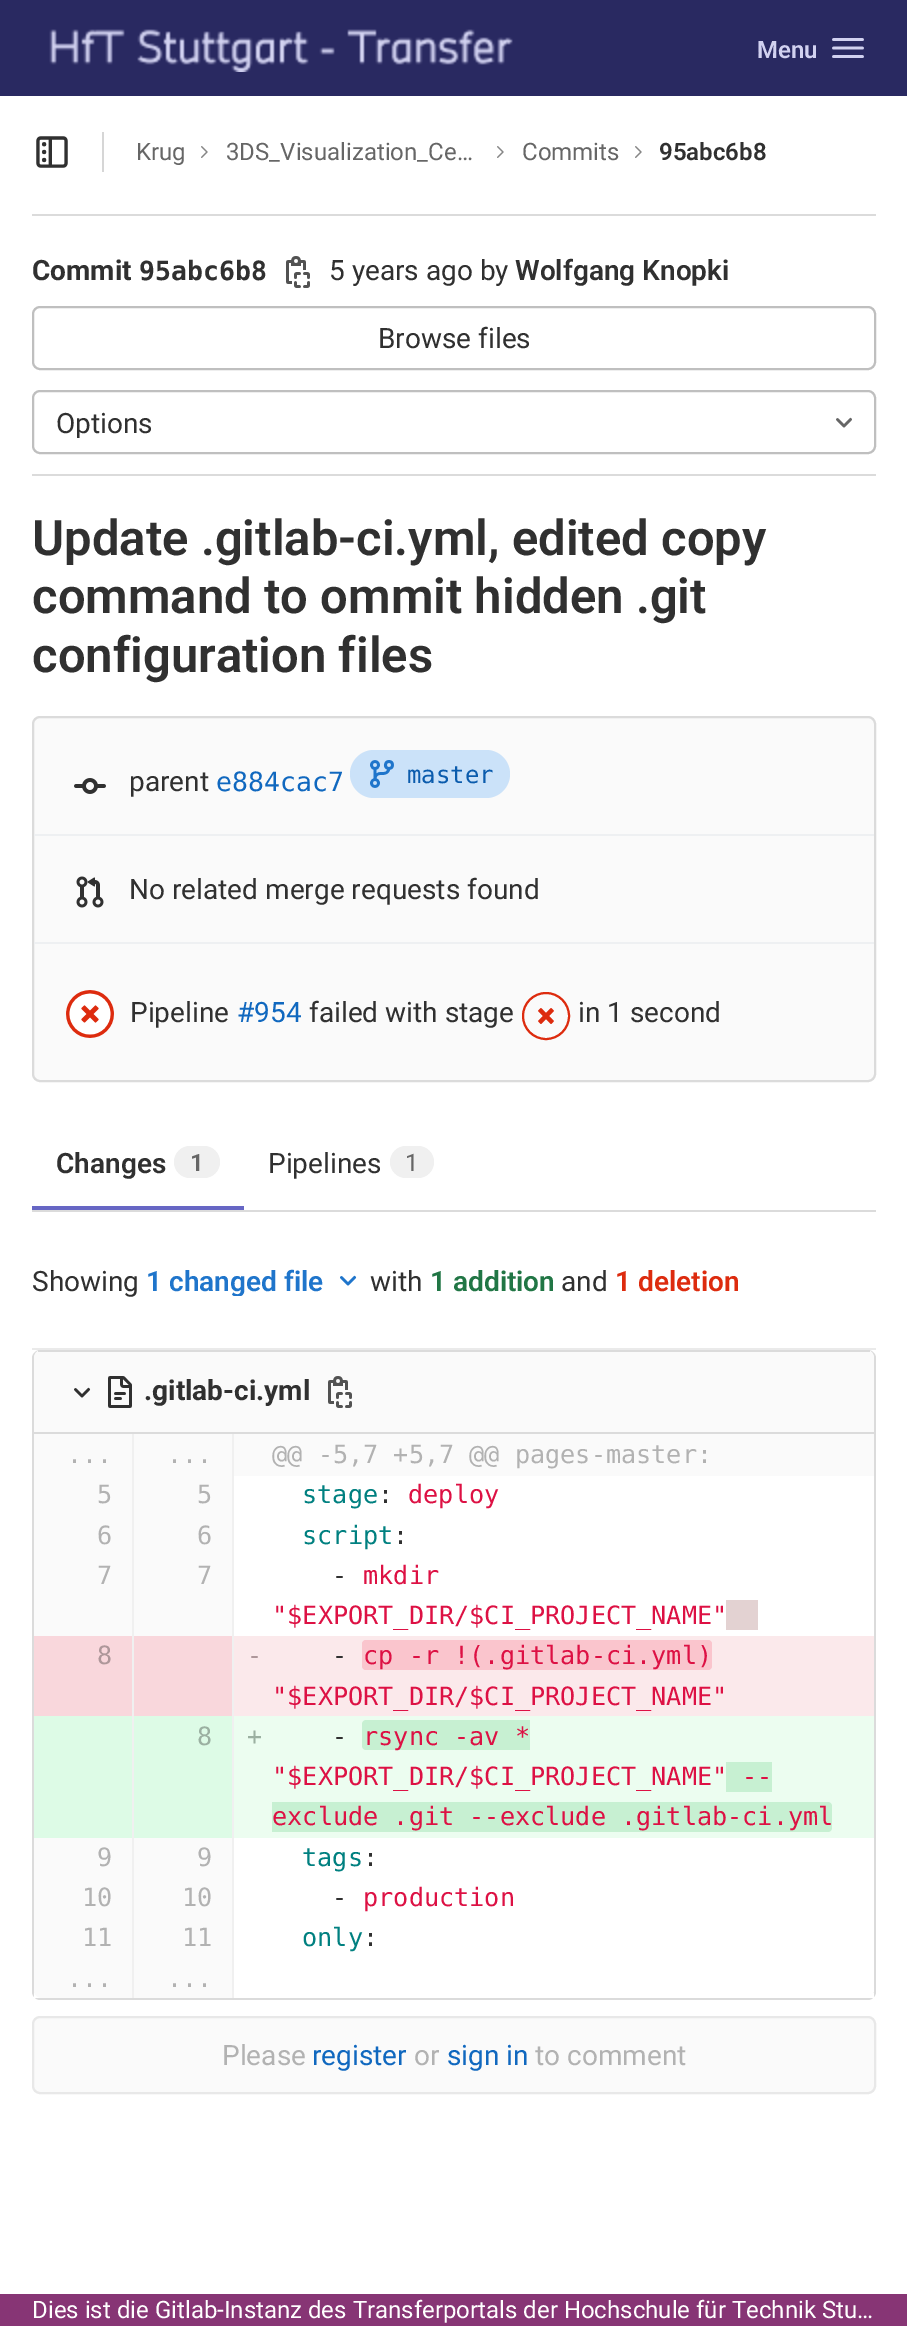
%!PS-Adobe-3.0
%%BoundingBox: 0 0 907 2326
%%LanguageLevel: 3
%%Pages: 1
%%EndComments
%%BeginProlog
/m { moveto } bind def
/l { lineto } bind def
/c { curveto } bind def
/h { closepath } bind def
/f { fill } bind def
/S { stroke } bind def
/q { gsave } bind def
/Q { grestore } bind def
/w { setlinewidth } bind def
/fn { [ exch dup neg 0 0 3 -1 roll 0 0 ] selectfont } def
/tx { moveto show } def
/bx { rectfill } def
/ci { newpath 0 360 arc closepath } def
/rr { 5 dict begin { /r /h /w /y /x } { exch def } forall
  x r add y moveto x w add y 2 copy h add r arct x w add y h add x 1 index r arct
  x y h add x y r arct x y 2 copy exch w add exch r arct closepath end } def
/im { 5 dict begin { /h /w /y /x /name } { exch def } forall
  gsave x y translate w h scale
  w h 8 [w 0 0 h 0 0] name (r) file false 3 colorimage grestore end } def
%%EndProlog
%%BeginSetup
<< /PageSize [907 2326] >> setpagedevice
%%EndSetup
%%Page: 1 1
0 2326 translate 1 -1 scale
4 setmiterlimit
1 setgray
0 0 907 2326 bx
0.161 0.161 0.38 setrgbcolor
0 0 907 96 bx
(image0.raw) 49 29 464 43 im
/Roboto-SemiBold 24 fn
0.82 0.82 0.941 setrgbcolor
(Menu) 757 58 tx
(image1.raw) 832 38 32 20 im
0.859 setgray
32 214 844 2 bx
(image2.raw) 36 136 32 32 im
0.839 setgray
102 132 2 40 bx
/Roboto-Regular 24 fn
0.4 setgray
(Krug) 136 160 tx
(image3.raw) 201 146 7 12 im
(3DS_Visualization_Ce…) 226 160 tx
(image3.raw) 497 146 7 12 im
(Commits) 522 160 tx
(image3.raw) 635 146 7 12 im
/Roboto-SemiBold 24 fn
0.188 setgray
(95abc6b8) 659 160 tx
/Roboto-Bold 28 fn
(Commit) 32 280 tx
/DejaVuSansMono-Bold 26.5 fn
(95abc6b8) 139 280 tx
(image4.raw) 286 256 24 32 im
/Roboto-Regular 28 fn
(5 years ago by) 329 280 tx
/Roboto-SemiBold 28 fn
(Wolfgang Knopki) 515 280 tx
0.749 setgray
2 w
33 307 842 62 7 rr S
/Roboto-Regular 28 fn
0.188 setgray
(Browse files) 378 348 tx
0.749 setgray
33 391 842 62 7 rr S
q
56 406 96 32 rectclip
0.188 setgray
(Options) 56 433 tx
Q
(image5.raw) 836 417 16 11 im
0.859 setgray
32 474 844 2 bx
/Roboto-SemiBold 49 fn
0.188 setgray
(Update .gitlab-ci.yml, edited copy) 32 555 tx
(command to ommit hidden .git) 32 613 tx
(configuration files) 32 672 tx
0.98 setgray
33 717 842 364 7 rr q f Q
0.859 setgray
S
0.933 0.941 0.949 setrgbcolor
34 834 840 2 bx
(image6.raw) 74 778 32 16 im
/Roboto-Regular 28 fn
0.188 setgray
(parent) 129 791 tx
/DejaVuSansMono-Regular 26.5 fn
0.063 0.408 0.749 setrgbcolor
(e884cac7) 216 791 tx
0.796 0.886 0.976 setrgbcolor
350 750 160 48 24 rr f
(image7.raw) 370 760 24 28 im
/DejaVuSansMono-Regular 24 fn
0.043 0.361 0.678 setrgbcolor
(master) 407 783 tx
0.933 0.941 0.949 setrgbcolor
34 942 840 2 bx
(image8.raw) 76 876 28 32 im
/Roboto-Regular 28 fn
0.188 setgray
(No related merge requests found) 129 899 tx
(image9.raw) 66 990 48 48 im
(Pipeline) 130 1022 tx
0.063 0.408 0.749 setrgbcolor
(#954) 237 1022 tx
0.188 setgray
(failed with stage) 309 1022 tx
0.867 0.169 0.055 setrgbcolor
546 1016 23 ci S
(image10.raw) 538 1008 16 16 im
0.188 setgray
(in 1 second) 578 1022 tx
0.859 setgray
32 1210 844 2 bx
0.4 0.4 0.769 setrgbcolor
32 1206 212 4 bx
/Roboto-SemiBold 28 fn
0.188 setgray
(Changes) 56 1173 tx
0.941 setgray
174 1146 46 32 16 rr f
/Roboto-SemiBold 24 fn
0.4 setgray
(1) 190 1171 tx
/Roboto-Regular 28 fn
0.188 setgray
(Pipelines) 268 1173 tx
0.941 setgray
390 1146 44 32 16 rr f
/Roboto-Regular 24 fn
0.4 setgray
(1) 405 1171 tx
0.918 setgray
32 1348 844 2 bx
/Roboto-Regular 28 fn
0.188 setgray
(Showing) 32 1291 tx
q
146 1264 178 32 rectclip
/Roboto-SemiBold 28 fn
0.122 0.459 0.796 setrgbcolor
(1 changed file) 146 1291 tx
Q
(image11.raw) 340 1275 17 11 im
(with) 370 1291 tx
/Roboto-SemiBold 28 fn
0.129 0.463 0.271 setrgbcolor
(1 addition) 430 1291 tx
/Roboto-Regular 28 fn
0.188 setgray
(and) 561 1291 tx
/Roboto-SemiBold 28 fn
0.867 0.169 0.055 setrgbcolor
(1 deletion) 615 1291 tx
0.859 setgray
40 1350 m 868 1350 l 872 1350 876 1354 876 1358 c 876 1992 l 876 1996 872 2000 868 2000 c 40 2000 l 36 2000 32 1996 32 1992 c 32 1358 l 32 1354 36 1350 40 1350 c h 40 1350 m 868 1350 l 871 1350 874 1354 874 1358 c 874 1992 l 874 1995 871 1998 868 1998 c 40 1998 l 37 1998 34 1995 34 1992 c 34 1358 l 34 1354 37 1350 40 1350 c h eofill
0.98 setgray
42 1350 m 866 1350 l 870.5 1350 874 1353.5 874 1358 c 874 1434 l 34 1434 l 34 1358 l 34 1353.5 37.5 1350 42 1350 c h f
0.859 setgray
38 1350 832 2 bx
34 1432 840 2 bx
(image12.raw) 74 1387 17 11 im
(image13.raw) 108 1376 24 32 im
/Roboto-Bold 28 fn
0.188 setgray
(.gitlab-ci.yml) 144 1400 tx
(image14.raw) 328 1376 24 32 im
1 setgray
34 1993 840 5 bx
0.98 setgray
34 1434 98 202 bx
0.941 setgray
132 1434 2 524 bx
/DejaVuSansMono-Regular 25.2 fn
0.698 setgray
(...) 67 1463 tx
0.98 setgray
134 1434 98 202 bx
0.941 setgray
232 1434 2 564 bx
0.698 setgray
(...) 167 1463 tx
0.98 setgray
234 1434 640 42 bx
0.698 setgray
(@@ -5,7 +5,7 @@ pages-master:) 272 1463 tx
(5) 97 1503 tx
(5) 197 1503 tx
0 0.502 0.502 setrgbcolor
(stage) 302 1503 tx
0.188 setgray
(:) 378 1503 tx
0.867 0.067 0.267 setrgbcolor
(deploy) 408 1503 tx
0.698 setgray
(6) 97 1544 tx
(6) 197 1544 tx
0 0.502 0.502 setrgbcolor
(script) 302 1544 tx
0.188 setgray
(:) 393 1544 tx
0.698 setgray
(7) 97 1584 tx
(7) 197 1584 tx
0.188 setgray
(-) 332 1584 tx
0.867 0.067 0.267 setrgbcolor
(mkdir) 363 1584 tx
("$EXPORT_DIR/$CI_PROJECT_NAME") 272 1624 tx
0.89 0.824 0.824 setrgbcolor
726 1600 32 30 bx
0.976 0.843 0.863 setrgbcolor
34 1636 98 80 bx
0.682 0.592 0.604 setrgbcolor
(8) 97 1664 tx
0.976 0.843 0.863 setrgbcolor
134 1636 98 80 bx
0.984 0.914 0.922 setrgbcolor
234 1636 640 80 bx
0.682 0.592 0.604 setrgbcolor
(-) 247 1664 tx
0.188 setgray
(-) 332 1664 tx
0.98 0.773 0.804 setrgbcolor
362 1640 350 30 4 rr f
0.867 0.067 0.267 setrgbcolor
(cp -r !\(.gitlab-ci.yml\)) 363 1664 tx
("$EXPORT_DIR/$CI_PROJECT_NAME") 272 1705 tx
0.867 0.984 0.902 setrgbcolor
34 1716 98 122 bx
134 1716 98 122 bx
0.608 0.69 0.631 setrgbcolor
(8) 197 1745 tx
0.925 0.992 0.941 setrgbcolor
234 1716 640 122 bx
0.608 0.69 0.631 setrgbcolor
(+) 247 1745 tx
0.188 setgray
(-) 332 1745 tx
0.78 0.941 0.824 setrgbcolor
366 1720 m 530 1720 l 530 1750 l 366 1750 l 364 1750 362 1748 362 1746 c 362 1724 l 362 1722 364 1720 366 1720 c h f
0.867 0.067 0.267 setrgbcolor
(rsync -av *) 363 1745 tx
("$EXPORT_DIR/$CI_PROJECT_NAME") 272 1785 tx
0.78 0.941 0.824 setrgbcolor
726 1762 46 30 bx
0.867 0.067 0.267 setrgbcolor
(--) 742 1785 tx
0.78 0.941 0.824 setrgbcolor
272 1802 m 828 1802 l 830 1802 832 1804 832 1806 c 832 1828 l 832 1830 830 1832 828 1832 c 272 1832 l h f
0.867 0.067 0.267 setrgbcolor
(exclude .git --exclude .gitlab-ci.yml) 272 1825 tx
0.98 setgray
34 1838 98 120 bx
0.698 setgray
(9) 97 1866 tx
0.98 setgray
134 1838 98 160 bx
0.698 setgray
(9) 197 1866 tx
0 0.502 0.502 setrgbcolor
(tags) 302 1866 tx
0.188 setgray
(:) 363 1866 tx
0.698 setgray
(10) 82 1906 tx
(10) 182 1906 tx
0.188 setgray
(-) 332 1906 tx
0.867 0.067 0.267 setrgbcolor
(production) 363 1906 tx
0.698 setgray
(11) 82 1946 tx
(11) 182 1946 tx
0 0.502 0.502 setrgbcolor
(only) 302 1946 tx
0.188 setgray
(:) 363 1946 tx
0.98 setgray
34 1958 m 134 1958 l 134 1998 l 42 1998 l 37.5 1998 34 1994.5 34 1990 c h f
0.941 setgray
132 1958 2 40 bx
0.698 setgray
(...) 67 1987 tx
(...) 167 1987 tx
0.98 setgray
33 2017 842 76 7 rr q f Q
0.91 setgray
S
/Roboto-Regular 28 fn
0.698 setgray
(Please) 222 2065 tx
0.063 0.408 0.749 setrgbcolor
(register) 312 2065 tx
0.698 setgray
(or) 414 2065 tx
0.063 0.408 0.749 setrgbcolor
(sign in) 447 2065 tx
0.698 setgray
(to comment) 535 2065 tx
0.529 0.208 0.459 setrgbcolor
0 2294 907 32 bx
/Roboto-Regular 24 fn
1 setgray
(Dies ist die Gitlab-Instanz des Transferportals der Hochschule für Technik Stu…) 32 2318 tx
showpage
%%EOF
